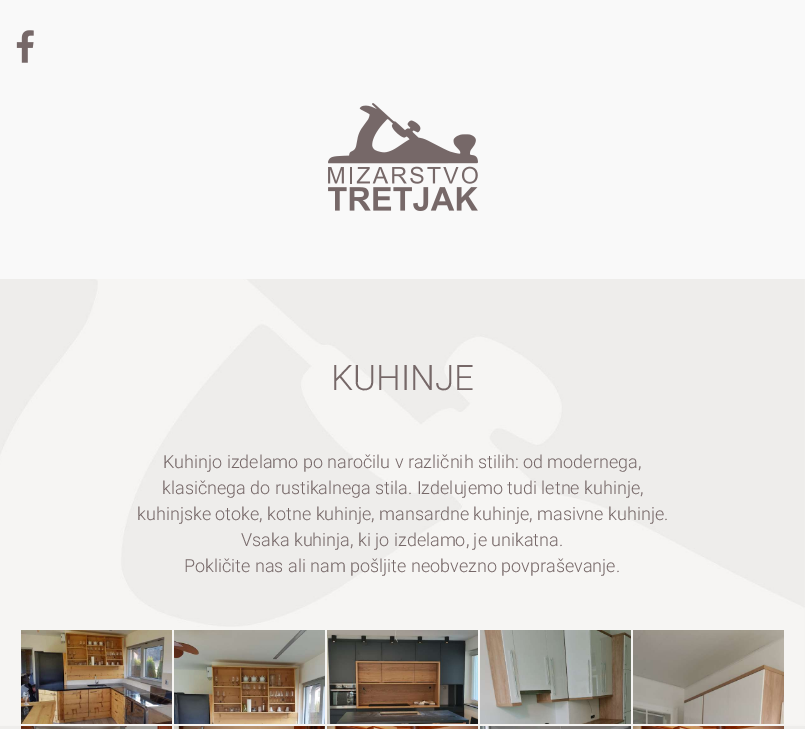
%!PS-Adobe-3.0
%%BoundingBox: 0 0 805 729
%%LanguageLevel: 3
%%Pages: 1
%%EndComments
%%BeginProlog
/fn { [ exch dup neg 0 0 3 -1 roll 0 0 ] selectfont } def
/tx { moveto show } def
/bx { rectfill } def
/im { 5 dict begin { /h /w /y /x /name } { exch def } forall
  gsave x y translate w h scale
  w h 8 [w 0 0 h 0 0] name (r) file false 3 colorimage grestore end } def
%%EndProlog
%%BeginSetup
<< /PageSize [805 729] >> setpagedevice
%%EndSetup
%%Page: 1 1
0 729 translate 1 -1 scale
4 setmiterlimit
0.976 setgray
0 0 805 729 bx
(image0.raw) 16 30 18 33 im
(image1.raw) 328 103 150 108 im
0.933 0.929 0.922 setrgbcolor
0 279 805 450 bx
(image2.raw) 0 279 805 447 im
/Roboto-Light 35 fn
0.463 0.408 0.408 setrgbcolor
(KUHINJE) 331 390 tx
/Roboto-Light 18 fn
(Kuhinjo izdelamo po naročilu v različnih stilih: od modernega,) 163 468 tx
(klasičnega do rustikalnega stila. Izdelujemo tudi letne kuhinje,) 162 494 tx
(kuhinjske otoke, kotne kuhinje, mansardne kuhinje, masivne kuhinje.) 137 520 tx
(Vsaka kuhinja, ki jo izdelamo, je unikatna.) 241 546 tx
(Pokličite nas ali nam pošljite neobvezno povpraševanje.) 184 572 tx
(image3.raw) 21 630 151 94 im
(image4.raw) 174 630 151 94 im
(image5.raw) 327 630 151 94 im
(image6.raw) 480 630 151 94 im
(image7.raw) 633 630 151 94 im
(image8.raw) 21 726 151 3 im
(image9.raw) 174 726 151 3 im
(image10.raw) 327 726 151 3 im
(image11.raw) 480 726 151 3 im
(image12.raw) 633 726 151 3 im
showpage
%%EOF
